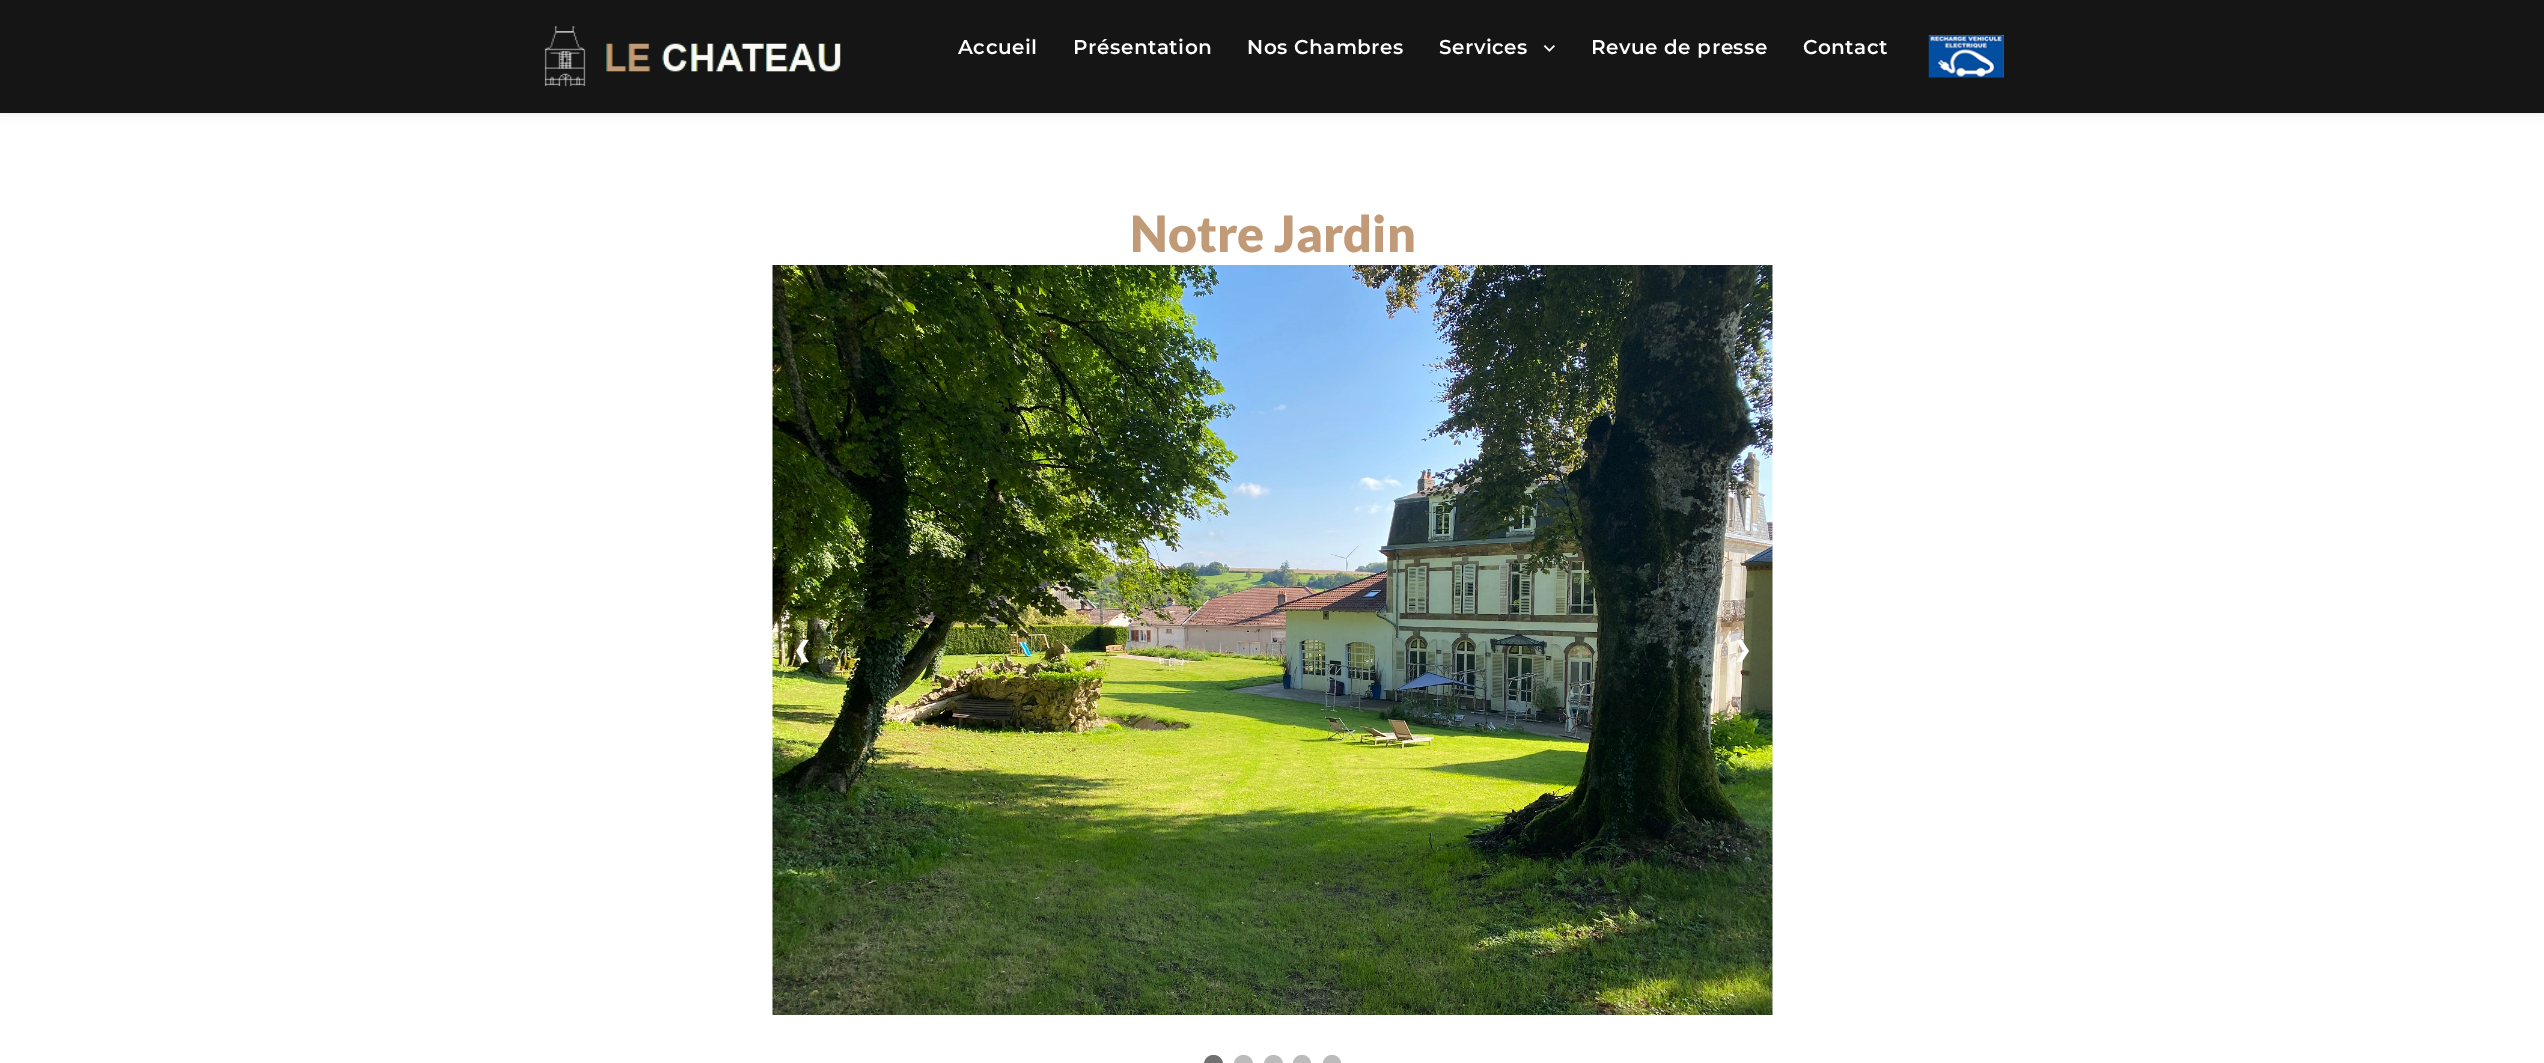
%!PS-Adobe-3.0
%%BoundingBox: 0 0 2544 1063
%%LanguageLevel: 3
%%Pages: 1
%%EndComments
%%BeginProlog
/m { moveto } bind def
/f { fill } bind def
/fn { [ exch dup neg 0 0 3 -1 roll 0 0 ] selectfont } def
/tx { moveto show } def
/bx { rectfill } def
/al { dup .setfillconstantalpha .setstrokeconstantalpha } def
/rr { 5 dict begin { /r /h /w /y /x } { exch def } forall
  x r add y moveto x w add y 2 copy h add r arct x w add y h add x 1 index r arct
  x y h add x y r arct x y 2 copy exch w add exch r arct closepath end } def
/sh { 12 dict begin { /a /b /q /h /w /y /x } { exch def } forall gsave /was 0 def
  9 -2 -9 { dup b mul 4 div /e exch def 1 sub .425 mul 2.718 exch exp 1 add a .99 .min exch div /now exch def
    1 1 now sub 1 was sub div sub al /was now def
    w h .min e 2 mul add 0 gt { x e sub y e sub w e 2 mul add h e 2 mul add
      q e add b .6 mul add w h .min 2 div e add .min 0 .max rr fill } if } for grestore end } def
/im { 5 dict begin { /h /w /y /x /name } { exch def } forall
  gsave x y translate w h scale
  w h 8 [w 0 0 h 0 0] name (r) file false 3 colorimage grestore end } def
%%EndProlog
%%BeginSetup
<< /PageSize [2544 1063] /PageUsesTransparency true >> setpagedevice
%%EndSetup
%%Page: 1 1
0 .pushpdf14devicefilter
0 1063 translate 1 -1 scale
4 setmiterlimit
1 setgray
0 0 2544 1063 bx
0 setgray
0 0 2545 113 0 6 0.1 sh
0.082 0.082 0.086 setrgbcolor
0 0 2544 113 bx
(image0.raw) 544 26 297 61 im
/Montserrat-SemiBold 20 fn
1 setgray
958 54 m 0.5 0 (Accueil) ashow
1073 54 m 0.5 0 (Présentation) ashow
1247 54 m 0.5 0 (Nos Chambres) ashow
1439 54 m 0.5 0 (Services) ashow
(image1.raw) 1543 45 12 7 im
1591 54 m 0.5 0 (Revue de presse) ashow
1803 54 m 0.5 0 (Contact) ashow
(image2.raw) 1928 35 76 43 im
/Lato-Black 50 fn
0.757 0.608 0.467 setrgbcolor
(Notre Jardin) 1130 252 tx
(image3.raw) 772 265 1001 750 im
/DejaVuSans-Bold 22 fn
1 setgray
793 657 m 0.5 0 (❮) ashow
1733 657 m 0.5 0 (❯) ashow
0.443 setgray
1204 1055 19 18 9.5 rr f
0.733 setgray
1234 1055 19 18 9.5 rr f
1264 1055 19 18 9.5 rr f
1293 1055 18 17 9 rr f
1323 1055 18 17 9 rr f
.poppdf14devicefilter showpage
%%EOF
